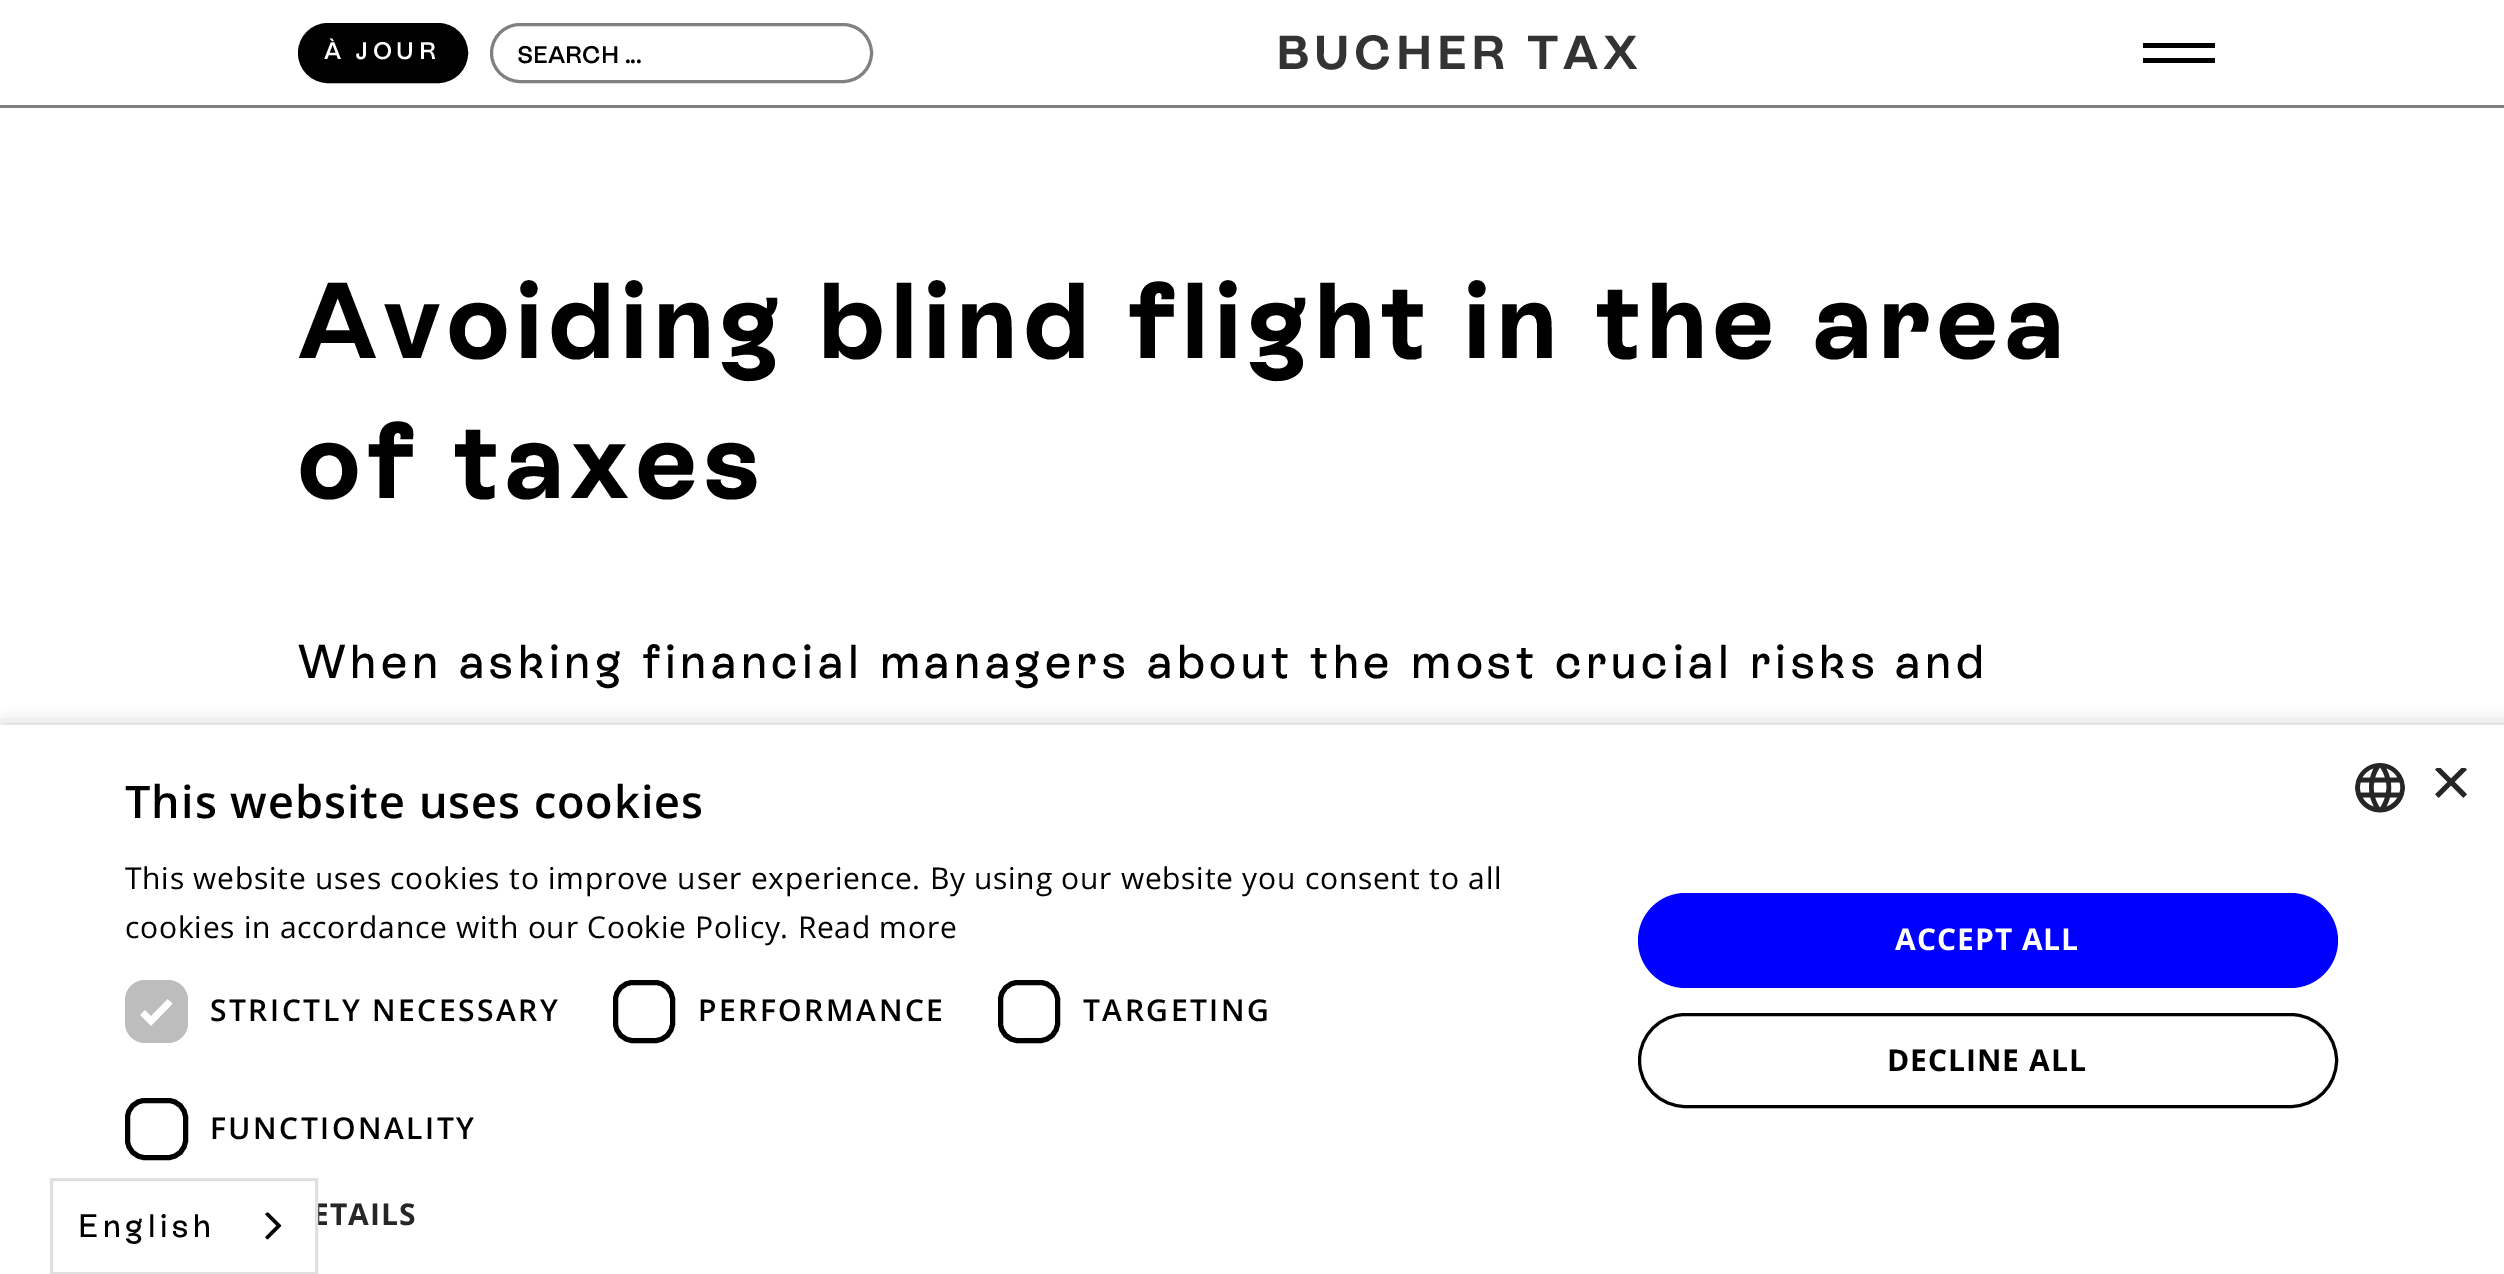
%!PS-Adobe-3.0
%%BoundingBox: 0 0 2504 1274
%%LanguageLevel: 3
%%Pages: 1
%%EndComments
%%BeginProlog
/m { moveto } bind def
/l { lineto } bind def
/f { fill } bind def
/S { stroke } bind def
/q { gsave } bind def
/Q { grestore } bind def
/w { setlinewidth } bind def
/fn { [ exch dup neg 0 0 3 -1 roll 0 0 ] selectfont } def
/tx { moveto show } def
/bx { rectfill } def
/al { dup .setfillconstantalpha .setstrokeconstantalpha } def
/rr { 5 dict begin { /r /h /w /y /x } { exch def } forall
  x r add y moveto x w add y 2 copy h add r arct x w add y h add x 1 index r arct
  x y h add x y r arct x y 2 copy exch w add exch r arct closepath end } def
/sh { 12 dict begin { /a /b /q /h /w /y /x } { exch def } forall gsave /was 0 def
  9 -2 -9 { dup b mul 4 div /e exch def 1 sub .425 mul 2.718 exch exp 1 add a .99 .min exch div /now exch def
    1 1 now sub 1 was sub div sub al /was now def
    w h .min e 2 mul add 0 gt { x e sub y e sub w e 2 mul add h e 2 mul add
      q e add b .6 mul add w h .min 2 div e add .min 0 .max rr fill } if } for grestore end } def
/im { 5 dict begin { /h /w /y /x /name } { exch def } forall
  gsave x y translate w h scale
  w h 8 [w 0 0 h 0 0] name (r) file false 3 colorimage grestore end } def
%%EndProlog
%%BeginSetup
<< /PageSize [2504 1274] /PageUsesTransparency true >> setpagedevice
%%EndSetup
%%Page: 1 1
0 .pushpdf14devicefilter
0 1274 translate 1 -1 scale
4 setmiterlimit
1 setgray
0 0 2504 1274 bx
0.502 setgray
0 105 2504 3 bx
0 setgray
299.5 24.5 167 57 28.5 rr q f Q
3 w
S
/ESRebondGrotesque-SemiBold 24 fn
1 setgray
324 59 m 4.77 0 (À JOUR) ashow
0.502 setgray
491.5 24.5 380 57 28.5 rr S
0 setgray
(SEARCH ...) 517 63 tx
/ESRebondGrotesque-Bold 47.7 fn
0.2 setgray
1276 69 m 4.77 0 (BUCHER TAX) ashow
0 setgray
2143 43 72 5 bx
2143 58 72 5 bx
/ESRebondGrotesque-Bold 107.4 fn
298 358 m 7.15 0 (Avoiding blind flight in the area) ashow
298 498 m 7.15 0 (of taxes) ashow
/ESRebondGrotesque-Medium 47.7 fn
298 678 m 4.77 0 (When asking financial managers about the most crucial risks and) ashow
3 730 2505 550 0 10 0.35 sh
1 setgray
0 725 2504 549 bx
/OpenSans-SemiBold 45 fn
0 setgray
125 818 m 1 0 (This website uses cookies) ashow
/OpenSans-Regular 30 fn
125 889 m 0.75 0 (This website uses cookies to improve user experience. By using our website you consent to all) ashow
125 938 m 0.75 0 (cookies in accordance with our Cookie Policy. Read more) ashow
0.741 setgray
125 980 63 63 20 rr f
1 setgray
6.6 w
142.5 1012.5 m 151 1021 l 170 1001.5 l S
/OpenSans-SemiBold 30 fn
0 setgray
210 1021 m 2.5 0 (STRICTLY NECESSARY) ashow
5 w
615.5 982.5 57 58 17.5 rr S
698 1021 m 2.5 0 (PERFORMANCE) ashow
1000.5 982.5 57 58 17.5 rr S
1083 1021 m 2.5 0 (TARGETING) ashow
127.5 1100.5 58 57 17.5 rr S
210 1139 m 2.5 0 (FUNCTIONALITY) ashow
/OpenSans-Bold 30 fn
0.149 setgray
312 1225 m 1 0 (ETAILS) ashow
0 0 1 setrgbcolor
1638 893 700 95 47.5 rr f
1 setgray
1895 950 m 1 0 (ACCEPT ALL) ashow
0 setgray
3 w
1639.5 1014.5 697 92 46 rr S
1887 1071 m 1 0 (DECLINE ALL) ashow
(image0.raw) 2355 763 50 50 im
q
2430 768 38 37 rectclip
/LiberationSans-Regular 72 fn
0.149 setgray
(×) 2430 806 tx
Q
1 setgray
314 1203 1 22 bx
0.878 setgray
51.5 1179.5 265 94 rectstroke
/ESRebondGrotesque-Medium 32.5 fn
0 setgray
78 1237 m 4.77 0 (English) ashow
(image1.raw) 265 1212 17 28 im
.poppdf14devicefilter showpage
%%EOF
